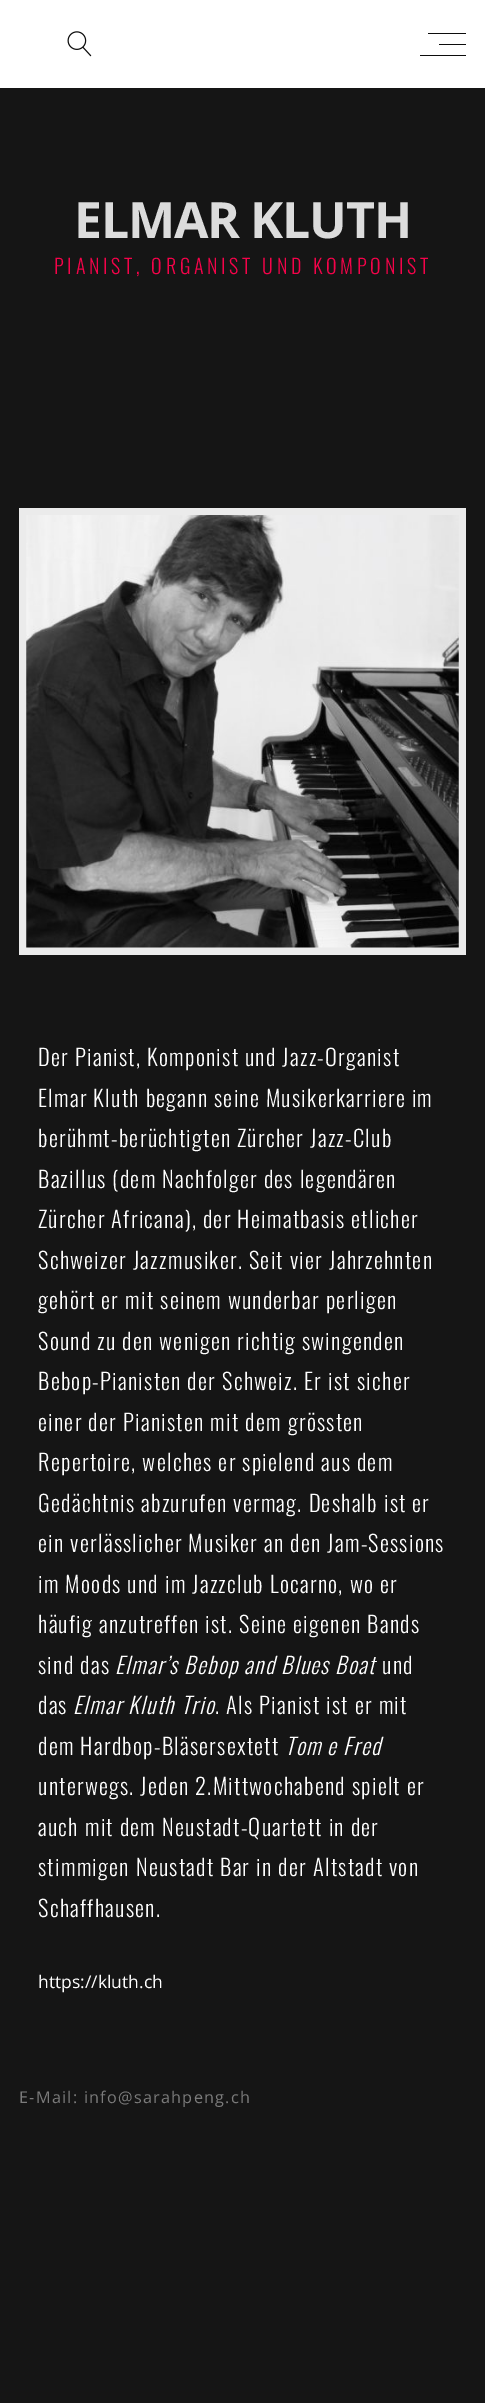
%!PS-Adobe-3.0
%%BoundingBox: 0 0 485 2403
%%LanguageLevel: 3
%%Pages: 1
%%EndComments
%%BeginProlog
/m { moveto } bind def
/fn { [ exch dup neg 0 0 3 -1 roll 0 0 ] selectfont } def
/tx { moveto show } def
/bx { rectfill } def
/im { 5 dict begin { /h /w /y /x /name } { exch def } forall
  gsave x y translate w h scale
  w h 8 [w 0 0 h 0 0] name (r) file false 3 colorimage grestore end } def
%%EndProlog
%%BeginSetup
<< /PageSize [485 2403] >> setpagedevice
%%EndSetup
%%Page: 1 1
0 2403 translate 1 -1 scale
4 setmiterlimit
0.082 setgray
0 0 485 2403 bx
1 setgray
0 0 485 88 bx
(image0.raw) 67 31 25 26 im
0.047 setgray
428 33 38 1 bx
439 44 27 1 bx
420 55 46 1 bx
/OpenSans-Bold 50 fn
0.863 setgray
74 238 m -1.25 0 (ELMAR KLUTH) ashow
/Oswald-Light 20 fn
0.961 0.012 0.29 setrgbcolor
54 274 m 3.75 0 (PIANIST, ORGANIST UND KOMPONIST) ashow
0.922 setgray
19 508 447 447 bx
(image1.raw) 26 515 433 433 im
/Oswald-Light 22.5 fn
1 setgray
38 1066 m 1.25 0 (Der Pianist, Komponist und Jazz-Organist) ashow
38 1107 m 1.25 0 (Elmar Kluth begann seine Musikerkarriere im) ashow
38 1147 m 1.25 0 (berühmt-berüchtigten Zürcher Jazz-Club) ashow
38 1188 m 1.25 0 (Bazillus \(dem Nachfolger des legendären) ashow
38 1228 m 1.25 0 (Zürcher Africana\), der Heimatbasis etlicher) ashow
38 1269 m 1.25 0 (Schweizer Jazzmusiker. Seit vier Jahrzehnten) ashow
38 1309 m 1.25 0 (gehört er mit seinem wunderbar perligen) ashow
38 1350 m 1.25 0 (Sound zu den wenigen richtig swingenden) ashow
38 1390 m 1.25 0 (Bebop-Pianisten der Schweiz. Er ist sicher) ashow
38 1431 m 1.25 0 (einer der Pianisten mit dem grössten) ashow
38 1471 m 1.25 0 (Repertoire, welches er spielend aus dem) ashow
38 1512 m 1.25 0 (Gedächtnis abzurufen vermag. Deshalb ist er) ashow
38 1552 m 1.25 0 (ein verlässlicher Musiker an den Jam-Sessions) ashow
38 1593 m 1.25 0 (im Moods und im Jazzclub Locarno, wo er) ashow
38 1633 m 1.25 0 (häufig anzutreffen ist. Seine eigenen Bands) ashow
38 1674 m 1.25 0 (sind das) ashow
/Oswald-LightItalic 22.5 fn
115 1674 m 1.25 0 (Elmar’s Bebop and Blues Boat) ashow
/Oswald-Light 22.5 fn
382 1674 m 1.25 0 (und) ashow
38 1714 m 1.25 0 (das) ashow
/Oswald-LightItalic 22.5 fn
73 1714 m 1.25 0 (Elmar Kluth Trio) ashow
/Oswald-Light 22.5 fn
215 1714 m 1.25 0 (. Als Pianist ist er mit) ashow
38 1755 m 1.25 0 (dem Hardbop-Bläsersextett) ashow
/Oswald-LightItalic 22.5 fn
285 1755 m 1.25 0 (Tom e Fred) ashow
/Oswald-Light 22.5 fn
38 1795 m 1.25 0 (unterwegs. Jeden 2.Mittwochabend spielt er) ashow
38 1836 m 1.25 0 (auch mit dem Neustadt-Quartett in der) ashow
38 1876 m 1.25 0 (stimmigen Neustadt Bar in der Altstadt von) ashow
38 1917 m 1.25 0 (Schaffhausen.) ashow
/OpenSans-Regular 17.5 fn
(https://kluth.ch) 38 1988 tx
/OpenSans-Regular 16.25 fn
0.482 setgray
19 2103 m 1.25 0 (E-Mail: info@sarahpeng.ch) ashow
showpage
%%EOF
